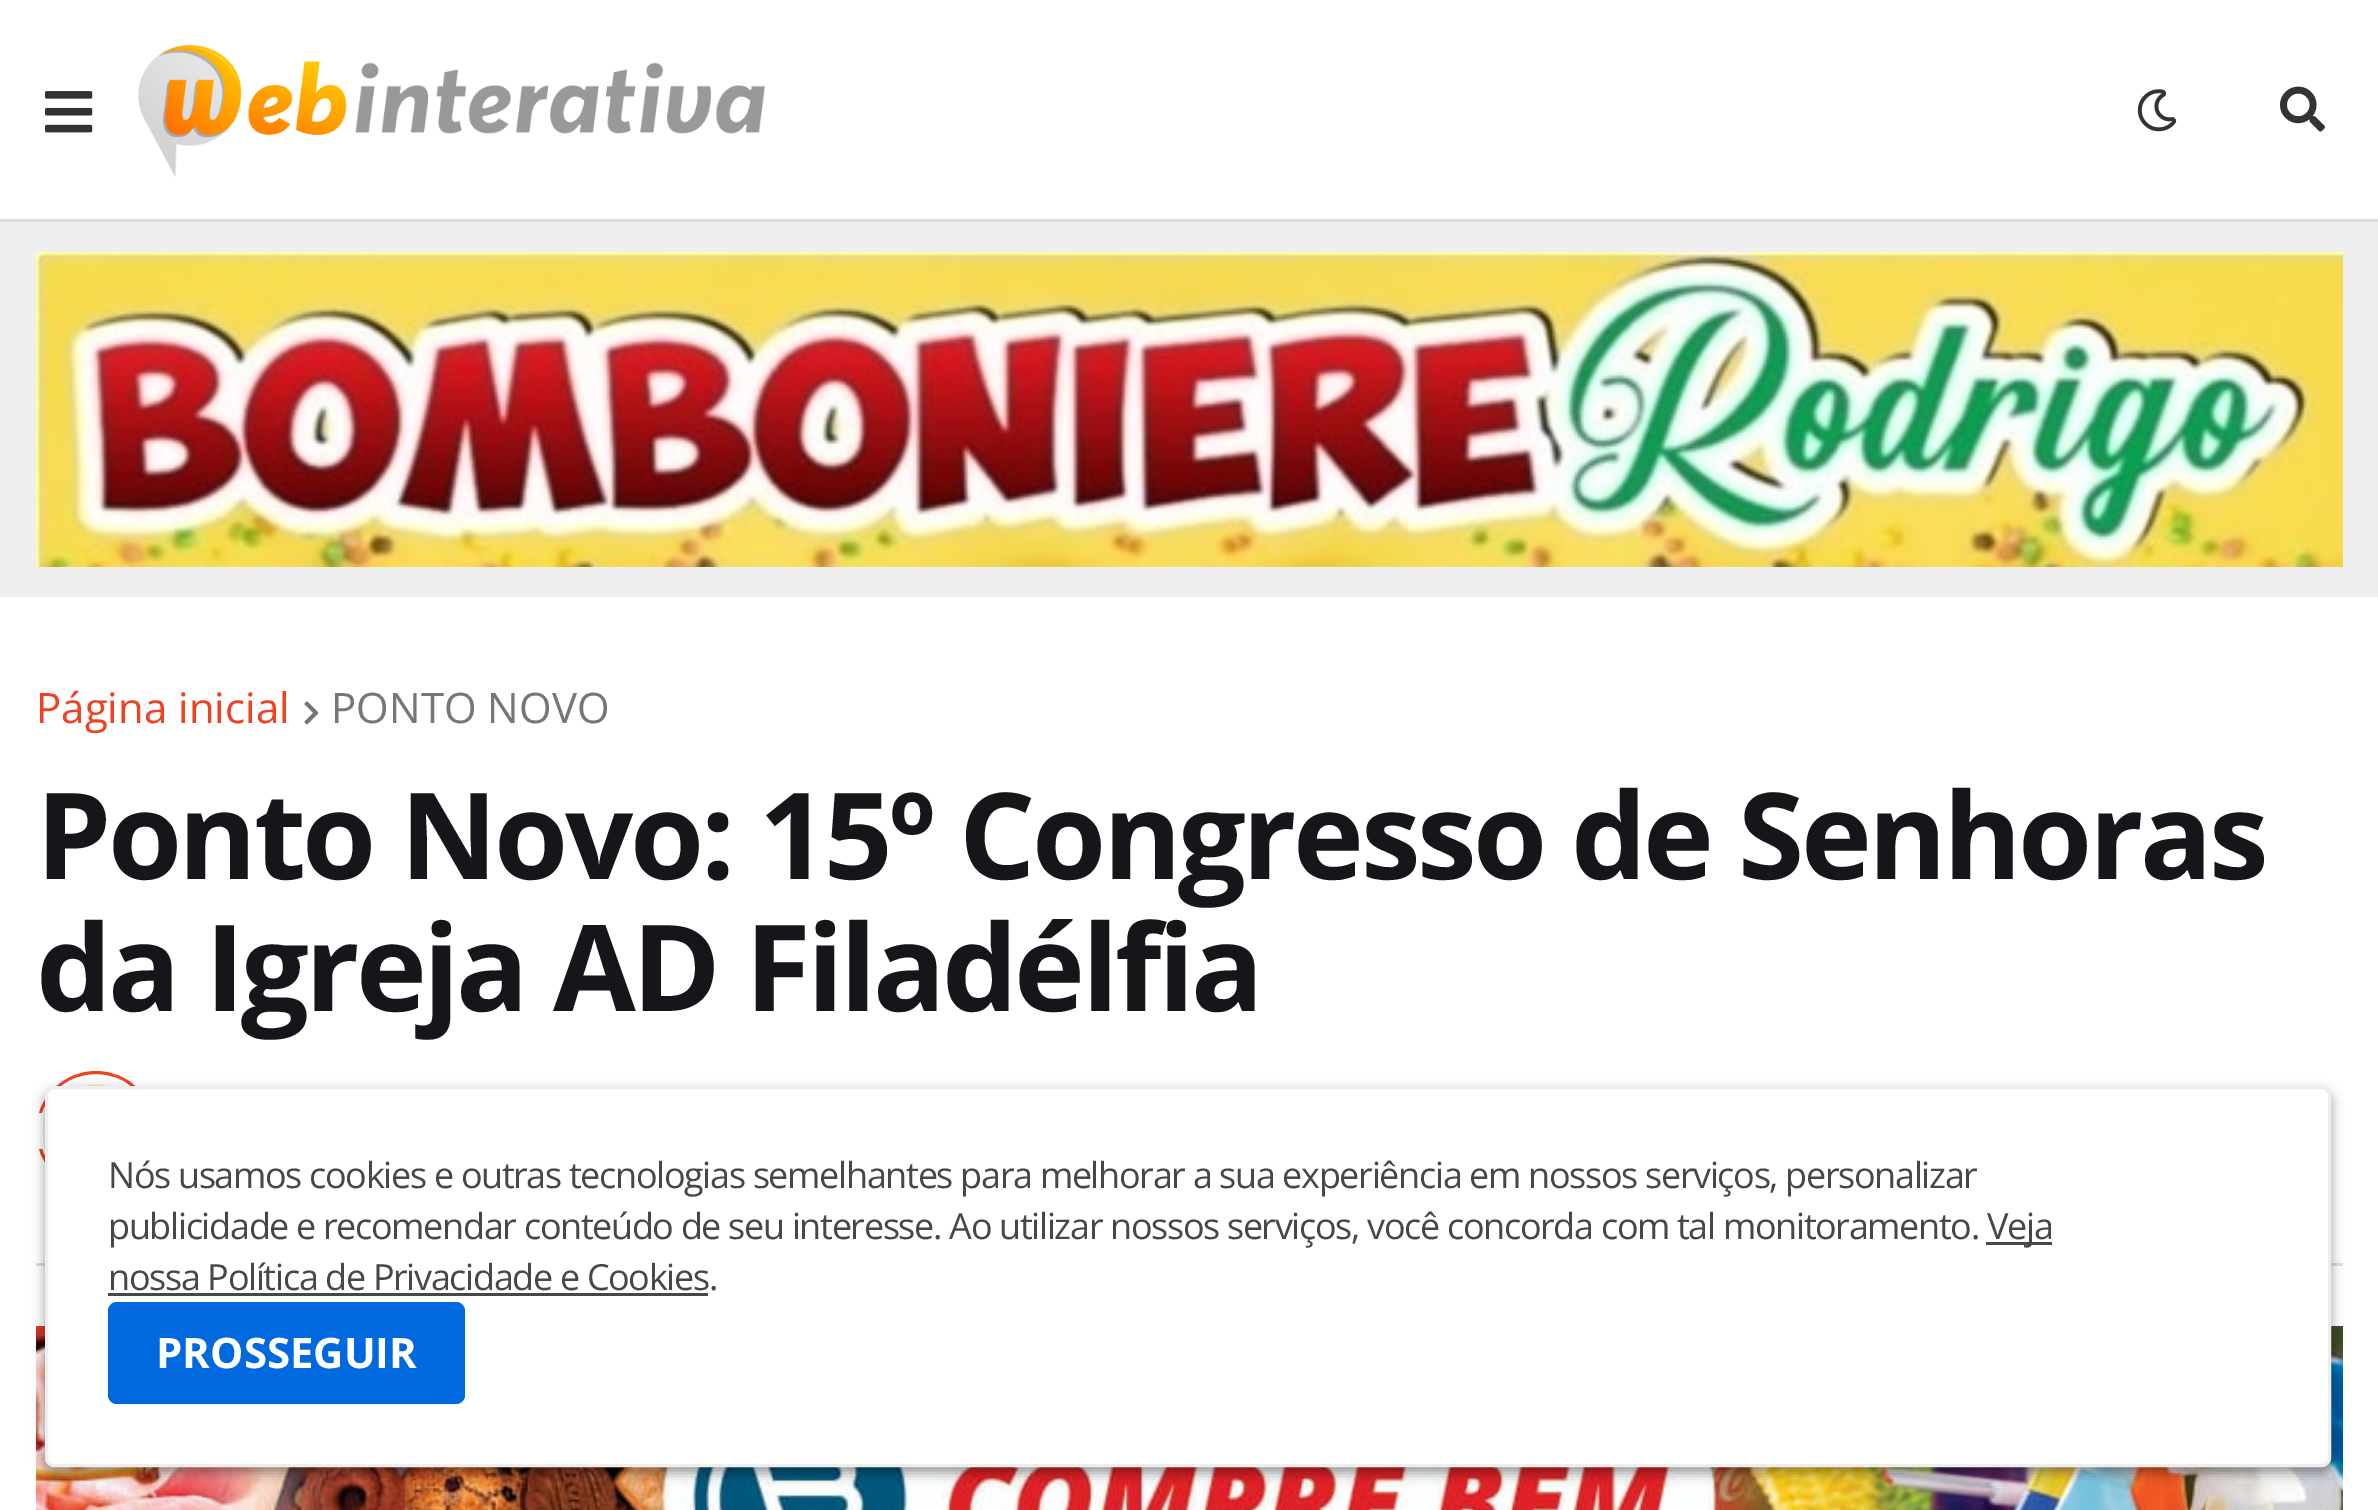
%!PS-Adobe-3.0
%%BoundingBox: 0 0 2378 1510
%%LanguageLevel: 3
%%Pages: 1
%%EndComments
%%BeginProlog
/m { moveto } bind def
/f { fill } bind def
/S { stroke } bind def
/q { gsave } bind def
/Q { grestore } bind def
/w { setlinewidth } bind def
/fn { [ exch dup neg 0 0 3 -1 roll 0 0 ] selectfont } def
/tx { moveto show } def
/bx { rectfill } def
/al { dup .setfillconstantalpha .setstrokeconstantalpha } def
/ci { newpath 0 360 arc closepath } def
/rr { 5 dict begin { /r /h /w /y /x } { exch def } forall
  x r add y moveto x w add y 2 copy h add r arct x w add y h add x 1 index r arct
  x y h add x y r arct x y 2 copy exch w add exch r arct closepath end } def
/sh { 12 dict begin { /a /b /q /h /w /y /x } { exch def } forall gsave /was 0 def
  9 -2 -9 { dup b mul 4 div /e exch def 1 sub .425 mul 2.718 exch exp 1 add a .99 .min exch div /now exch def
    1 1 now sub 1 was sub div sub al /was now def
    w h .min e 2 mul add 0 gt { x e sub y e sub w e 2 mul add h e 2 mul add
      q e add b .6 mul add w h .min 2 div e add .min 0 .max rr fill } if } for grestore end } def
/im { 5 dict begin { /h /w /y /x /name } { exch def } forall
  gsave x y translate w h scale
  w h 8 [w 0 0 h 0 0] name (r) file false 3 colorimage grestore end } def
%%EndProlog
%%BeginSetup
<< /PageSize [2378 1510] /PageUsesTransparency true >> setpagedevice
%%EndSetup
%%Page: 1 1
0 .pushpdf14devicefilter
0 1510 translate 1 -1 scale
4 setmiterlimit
1 setgray
0 0 2378 1510 bx
0.855 setgray
0 219 2378 3 bx
(image0.raw) 45 91 48 42 im
(image1.raw) 138 45 627 132 im
(image2.raw) 2137 89 40 43 im
(image3.raw) 2280 86 45 46 im
0.937 setgray
0 222 2378 375 bx
(image4.raw) 36 252 2307 315 im
0.867 setgray
36 1263 2307 3 bx
/OpenSans-Regular 42 fn
0.937 0.259 0.137 setrgbcolor
(Página inicial) 36 723 tx
(image5.raw) 304 701 15 24 im
0.463 0.463 0.478 setrgbcolor
(PONTO NOVO) 331 723 tx
/OpenSans-Bold 120 fn
0.082 0.086 0.102 setrgbcolor
36 879 m -3.6 0 (Ponto Novo: 15º Congresso de Senhoras) ashow
36 1011 m -3.6 0 (da Igreja AD Filadélfia) ashow
0.937 0.259 0.137 setrgbcolor
3 w
96 1131 58.5 ci S
1 setgray
36 1113 6 36 bx
(image6.raw) 42 1077 84 72 im
(image7.raw) 36 1326 2307 184 im
0 setgray
45 1092 2286 381 9 6 0.4 sh
1 setgray
46.5 1087.5 2283 378 7.5 rr q f Q
0.933 setgray
S
/OpenSans-Regular 36 fn
0.278 0.278 0.29 setrgbcolor
108 1188 m -1.35 0 (Nós usamos cookies e outras tecnologias semelhantes para melhorar a sua experiência em nossos serviços, personalizar) ashow
108 1239 m -1.35 0 (publicidade e recomendar conteúdo de seu interesse. Ao utilizar nossos serviços, você concorda com tal monitoramento.) ashow
1986 1242 66 3 bx
1987 1239 m -1.35 0 (Veja) ashow
108 1290 m -1.35 0 (nossa Política de Privacidade e Cookies.) ashow
108 1293 600 3 bx
0 0.412 0.871 setrgbcolor
108 1302 357 102 9 rr f
/OpenSans-Bold 42 fn
1 setgray
(PROSSEGUIR) 156 1368 tx
.poppdf14devicefilter showpage
%%EOF
